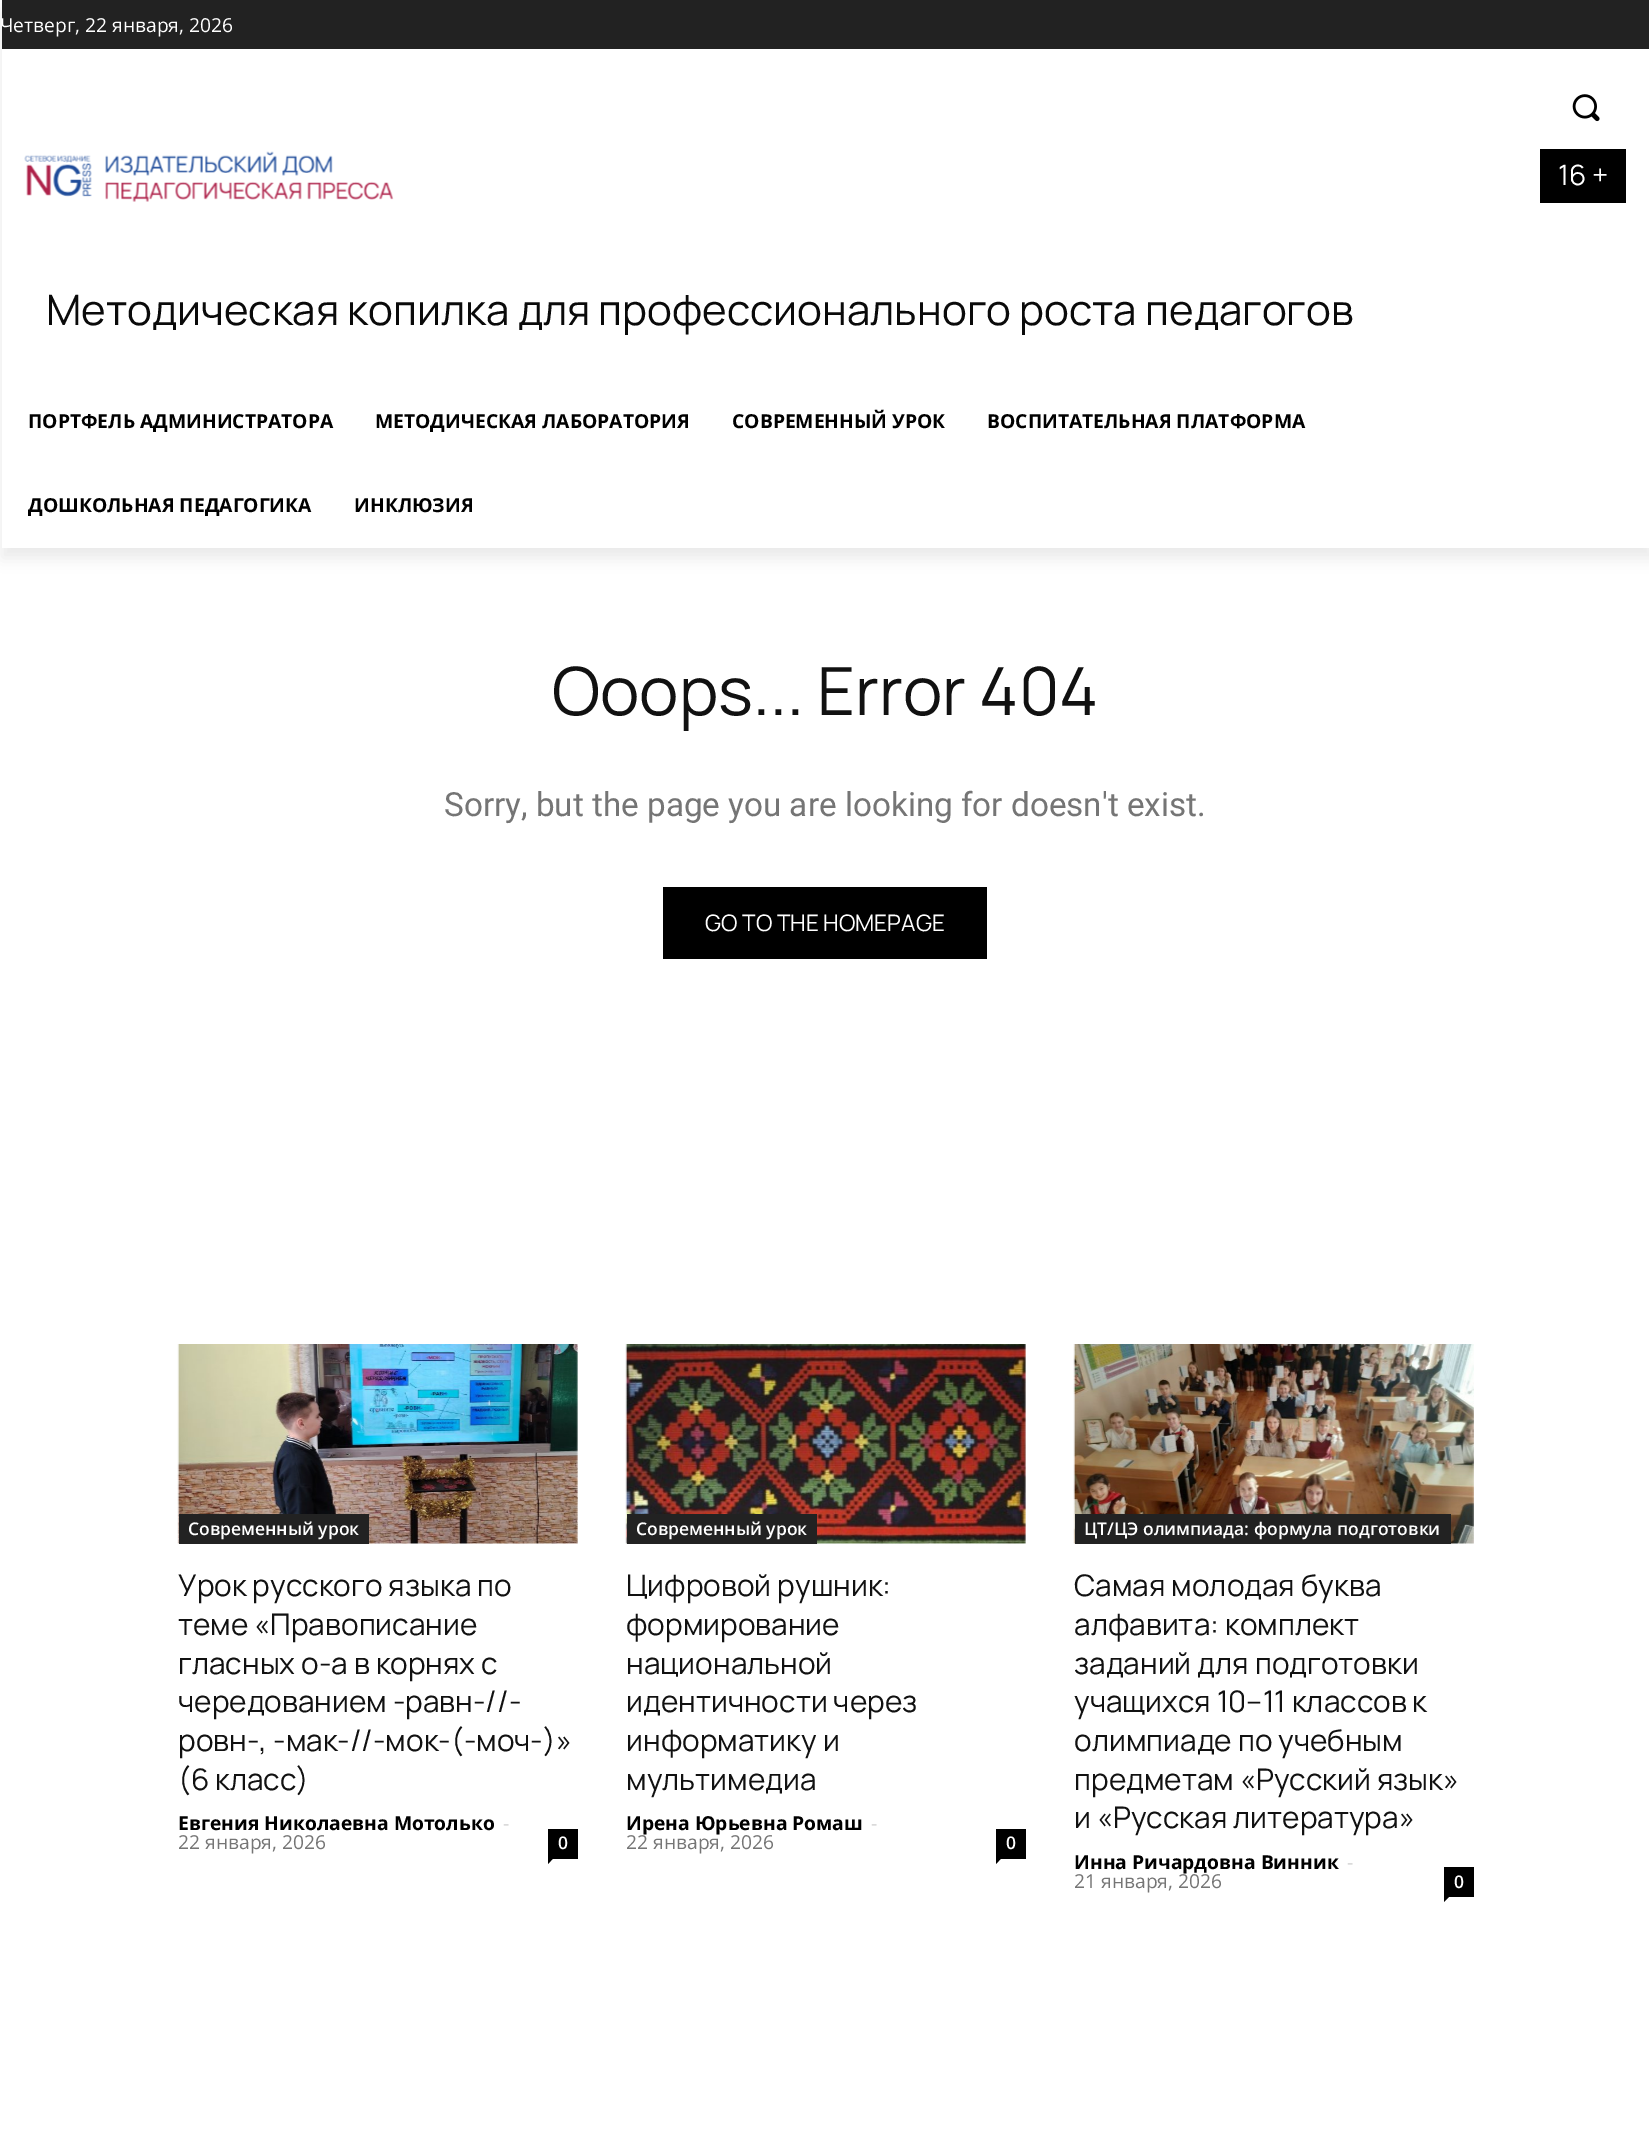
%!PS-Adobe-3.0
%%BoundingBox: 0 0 1649 2129
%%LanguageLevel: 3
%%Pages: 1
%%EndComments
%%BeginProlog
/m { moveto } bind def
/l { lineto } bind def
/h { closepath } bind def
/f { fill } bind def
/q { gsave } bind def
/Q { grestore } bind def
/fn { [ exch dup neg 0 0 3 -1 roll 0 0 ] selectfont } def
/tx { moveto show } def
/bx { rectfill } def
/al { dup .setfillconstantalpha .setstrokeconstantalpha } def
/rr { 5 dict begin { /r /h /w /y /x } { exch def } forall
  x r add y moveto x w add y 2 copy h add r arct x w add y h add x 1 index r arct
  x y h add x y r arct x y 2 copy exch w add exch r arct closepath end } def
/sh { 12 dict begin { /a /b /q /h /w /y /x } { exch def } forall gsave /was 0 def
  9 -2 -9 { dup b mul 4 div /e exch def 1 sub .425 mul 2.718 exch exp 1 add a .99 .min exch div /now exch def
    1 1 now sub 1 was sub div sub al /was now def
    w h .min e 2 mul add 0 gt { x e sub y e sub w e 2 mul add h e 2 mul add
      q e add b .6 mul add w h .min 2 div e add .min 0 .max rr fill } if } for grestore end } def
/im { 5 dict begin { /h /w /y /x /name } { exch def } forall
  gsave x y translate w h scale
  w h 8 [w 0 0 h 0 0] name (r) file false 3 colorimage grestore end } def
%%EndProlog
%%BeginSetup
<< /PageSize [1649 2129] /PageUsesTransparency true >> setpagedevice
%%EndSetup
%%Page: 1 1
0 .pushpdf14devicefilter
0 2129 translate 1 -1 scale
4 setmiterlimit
1 setgray
0 0 1649 2129 bx
0.133 setgray
2 0 1647 49 bx
(image0.raw) 24 151 370 51 im
0 setgray
1540 149 86 54 bx
q
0 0 m 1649 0 l 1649 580 l 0 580 l h 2 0 m 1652 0 l 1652 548 l 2 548 l h eoclip newpath
2 11 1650 547 0 7 0.08 sh
Q
/OpenSans-Regular 19.25 fn
1 setgray
(Четверг, 22 января, 2026) 0 32 tx
(image1.raw) 1572 94 28 28 im
/Manrope-Regular 28 fn
(16 +) 1558 185 tx
/Manrope-Regular 42 fn
0.039 setgray
(Методическая копилка для профессионального роста педагогов) 46 325 tx
/OpenSans-Bold 19.25 fn
0 setgray
(ПОРТФЕЛЬ АДМИНИСТРАТОРА) 28 428 tx
(МЕТОДИЧЕСКАЯ ЛАБОРАТОРИЯ) 375 428 tx
(СОВРЕМЕННЫЙ УРОК) 732 428 tx
(ВОСПИТАТЕЛЬНАЯ ПЛАТФОРМА) 987 428 tx
(ДОШКОЛЬНАЯ ПЕДАГОГИКА) 28 512 tx
(ИНКЛЮЗИЯ) 354 512 tx
/Manrope-Regular 66.5 fn
0.067 setgray
(Ooops... Error 404) 552 715 tx
/Roboto-Regular 33.25 fn
0.459 setgray
(Sorry, but the page you are looking for doesn't exist.) 444 816 tx
0 setgray
663 887 324 72 bx
/Manrope-Regular 22.75 fn
1 setgray
(GO TO THE HOMEPAGE) 705 931 tx
(image2.raw) 177 1344 401 200 im
0.133 setgray
179 1514 190 30 bx
/OpenSans-SemiBold 17.5 fn
1 setgray
(Современный урок) 188 1535 tx
/Manrope-Regular 29.75 fn
0.067 setgray
(Урок русского языка по) 178 1596 tx
(теме «Правописание) 178 1635 tx
(гласных о-а в корнях с) 178 1674 tx
(чередованием -равн-//-) 178 1712 tx
(ровн-, -мак-//-мок-\(-моч-\)») 178 1751 tx
(\(6 класс\)) 178 1790 tx
/OpenSans-Bold 19.25 fn
0 setgray
(Евгения Николаевна Мотолько) 178 1830 tx
/OpenSans-Regular 19.25 fn
0.8 setgray
(-) 503 1830 tx
0.459 setgray
(22 января, 2026) 178 1849 tx
0 setgray
548 1829 30 30 bx
/OpenSans-SemiBold 17.5 fn
1 setgray
(0) 558 1849 tx
0 setgray
548 1858.5 m 553 1858.5 l 548 1864 l h f
(image3.raw) 625 1344 401 200 im
0.133 setgray
627 1514 190 30 bx
1 setgray
(Современный урок) 636 1535 tx
/Manrope-Regular 29.75 fn
0.067 setgray
(Цифровой рушник:) 626 1596 tx
(формирование) 626 1635 tx
(национальной) 626 1674 tx
(идентичности через) 626 1712 tx
(информатику и) 626 1751 tx
(мультимедиа) 626 1790 tx
/OpenSans-Bold 19.25 fn
0 setgray
(Ирена Юрьевна Ромаш) 626 1830 tx
/OpenSans-Regular 19.25 fn
0.8 setgray
(-) 871 1830 tx
0.459 setgray
(22 января, 2026) 626 1849 tx
0 setgray
996 1829 30 30 bx
/OpenSans-SemiBold 17.5 fn
1 setgray
(0) 1006 1849 tx
0 setgray
996 1858.5 m 1001 1858.5 l 996 1864 l h f
(image4.raw) 1073 1344 401 200 im
0.133 setgray
1075 1514 376 30 bx
1 setgray
(ЦТ/ЦЭ олимпиада: формула подготовки) 1084 1535 tx
/Manrope-Regular 29.75 fn
0.067 setgray
(Самая молодая буква) 1074 1596 tx
(алфавита: комплект) 1074 1635 tx
(заданий для подготовки) 1074 1674 tx
(учащихся 10–11 классов к) 1074 1712 tx
(олимпиаде по учебным) 1074 1751 tx
(предметам «Русский язык») 1074 1790 tx
(и «Русская литература») 1074 1828 tx
/OpenSans-Bold 19.25 fn
0 setgray
(Инна Ричардовна Винник) 1074 1869 tx
/OpenSans-Regular 19.25 fn
0.8 setgray
(-) 1347 1869 tx
0.459 setgray
(21 января, 2026) 1074 1888 tx
0 setgray
1444 1867 30 30 bx
/OpenSans-SemiBold 17.5 fn
1 setgray
(0) 1454 1888 tx
0 setgray
1444 1897 m 1449 1897 l 1444 1902 l h f
.poppdf14devicefilter showpage
%%EOF
